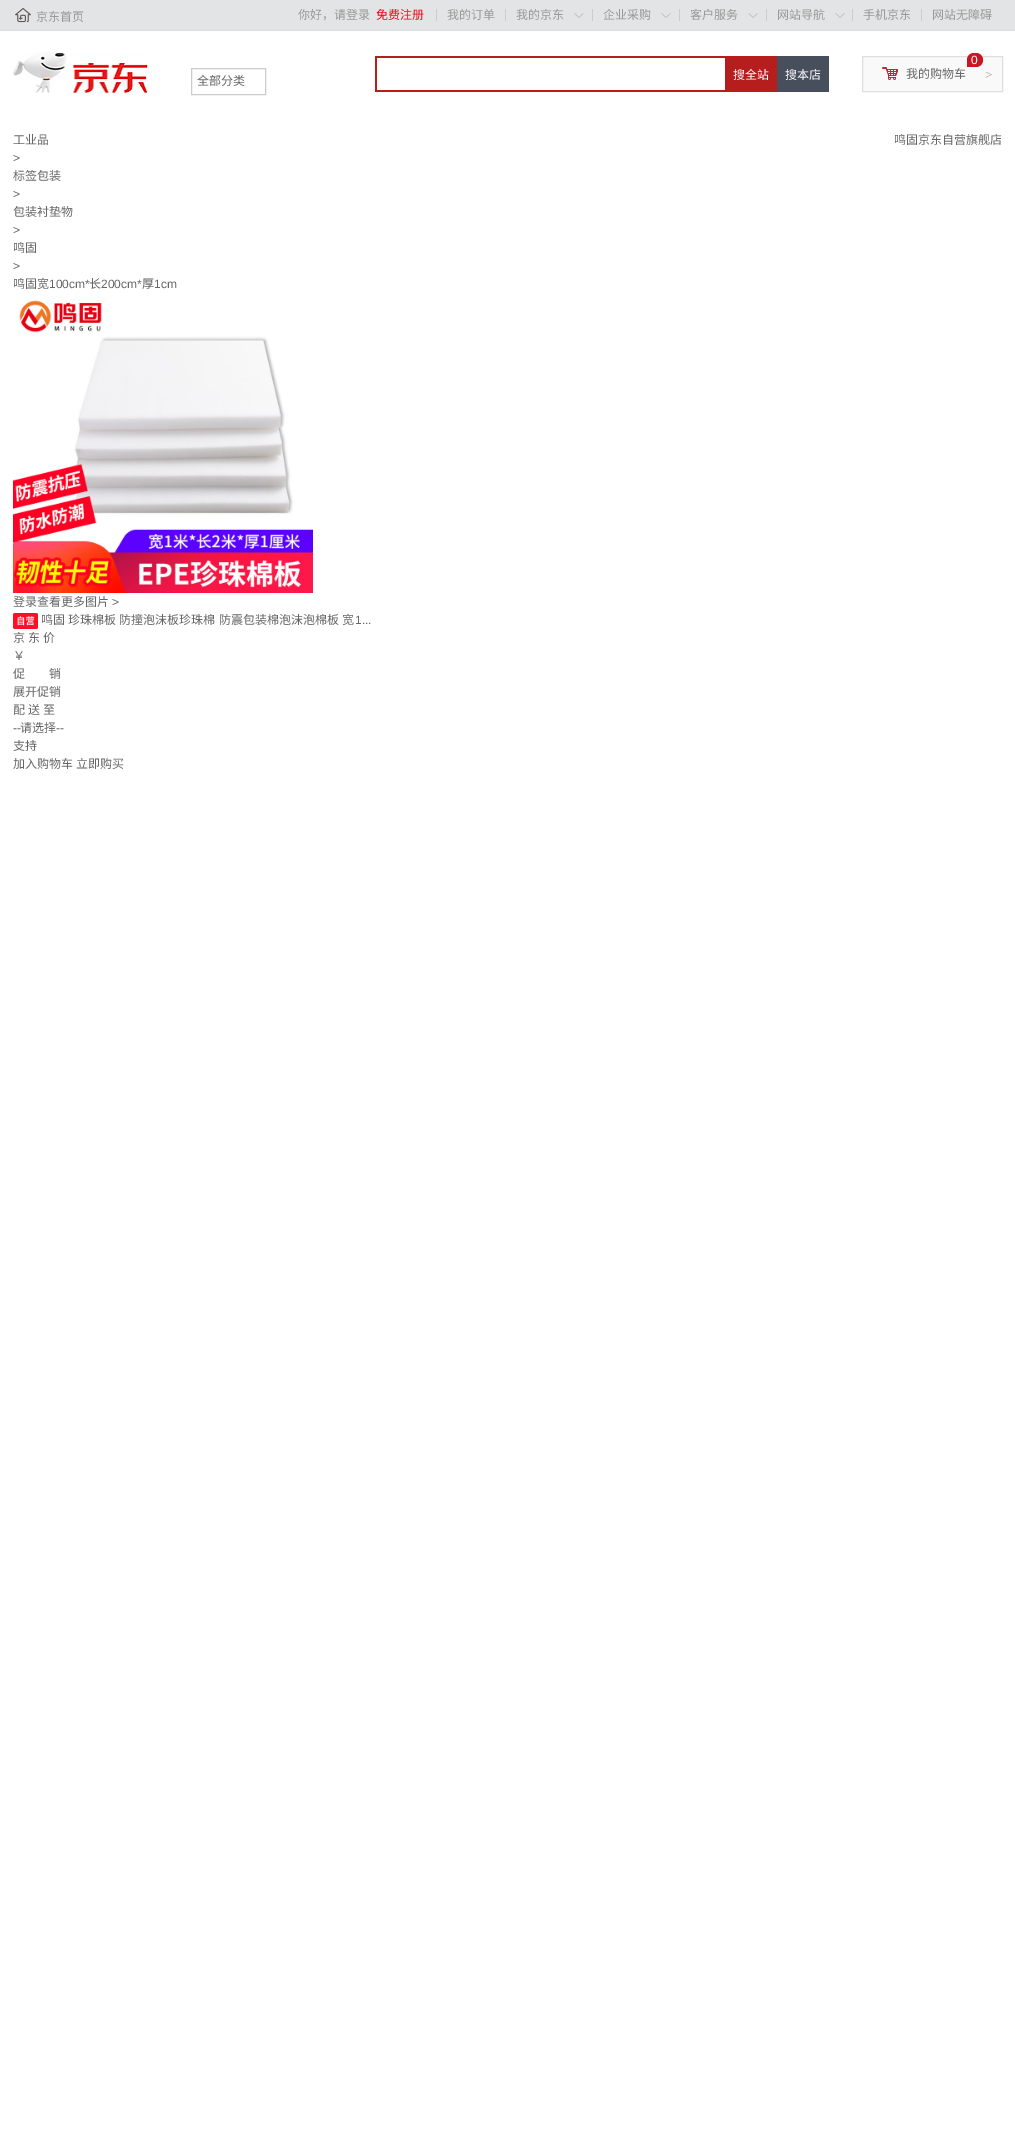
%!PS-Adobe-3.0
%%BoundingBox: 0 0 1015 2142
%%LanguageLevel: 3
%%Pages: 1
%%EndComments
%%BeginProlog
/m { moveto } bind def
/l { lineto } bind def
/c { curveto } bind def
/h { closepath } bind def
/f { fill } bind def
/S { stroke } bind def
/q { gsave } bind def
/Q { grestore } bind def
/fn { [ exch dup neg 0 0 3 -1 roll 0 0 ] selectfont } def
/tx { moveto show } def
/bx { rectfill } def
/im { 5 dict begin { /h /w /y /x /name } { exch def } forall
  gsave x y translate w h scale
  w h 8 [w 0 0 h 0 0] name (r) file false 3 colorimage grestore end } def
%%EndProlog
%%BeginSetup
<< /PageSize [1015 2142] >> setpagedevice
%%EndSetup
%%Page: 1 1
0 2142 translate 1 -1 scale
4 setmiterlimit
1 setgray
0 0 1015 2142 bx
0.89 0.894 0.898 setrgbcolor
0 0 1015 30 bx
0.867 setgray
0 30 1015 1 bx
(image0.raw) 15 8 16 15 im
/NotoSansCJKSC-Regular 12 fn
0.6 setgray
(京东首页) 36 21 tx
(你好，请登录) 298 19 tx
0.953 0.008 0.075 setrgbcolor
(免费注册) 376 19 tx
0.8 setgray
436 9 1 12 bx
0.6 setgray
(我的订单) 447 19 tx
0.8 setgray
505 9 1 12 bx
0.6 setgray
(我的京东) 516 19 tx
(image1.raw) 574 13 10 5 im
0.8 setgray
592 9 1 12 bx
0.6 setgray
(企业采购) 603 19 tx
(image1.raw) 661 13 10 5 im
0.8 setgray
679 9 1 12 bx
0.6 setgray
(客户服务) 690 19 tx
(image1.raw) 748 13 10 5 im
0.8 setgray
766 9 1 12 bx
0.6 setgray
(网站导航) 777 19 tx
(image1.raw) 835 13 10 5 im
0.8 setgray
852 9 1 12 bx
0.6 setgray
(手机京东) 863 19 tx
0.8 setgray
921 9 1 12 bx
0.6 setgray
(网站无障碍) 932 19 tx
(image2.raw) 13 51 135 42 im
0.8 setgray
191.5 68.5 74 26 rectstroke
0.4 setgray
(全部分类) 197 85 tx
0.714 0.114 0.114 setrgbcolor
375 56 350 2 bx
375 90 350 2 bx
375 56 2 36 bx
725 56 52 36 bx
1 setgray
(搜全站) 733 79 tx
0.278 0.306 0.361 setrgbcolor
777 56 52 36 bx
1 setgray
(搜本店) 785 79 tx
0.976 setgray
862.5 56.5 m 1002.5 56.5 l 1002.5 91.5 l 862.5 91.5 l h q f Q
0.875 setgray
S
0.784 0.086 0.137 setrgbcolor
974 53 m 976 53 l 980 53 983 56 983 60 c 983 64 980 67 976 67 c 967 67 l 967 60 l 967 56 970 53 974 53 c h f
/LiberationSans-Regular 12 fn
1 setgray
(0) 971 64 tx
(image3.raw) 882 67 16 13 im
/NotoSansCJKSC-Regular 12 fn
0.4 setgray
(我的购物车) 906 78 tx
/LiberationSerif-Regular 13 fn
0.6 setgray
(>) 985 79 tx
/NotoSansCJKSC-Regular 12 fn
0.4 setgray
(工业品) 13 144 tx
/LiberationSans-Regular 12 fn
(>) 13 162 tx
/NotoSansCJKSC-Regular 12 fn
(标签包装) 13 180 tx
/LiberationSans-Regular 12 fn
(>) 13 198 tx
/NotoSansCJKSC-Regular 12 fn
(包装衬垫物) 13 216 tx
/LiberationSans-Regular 12 fn
(>) 13 234 tx
/NotoSansCJKSC-Regular 12 fn
(鸣固) 13 252 tx
/LiberationSans-Regular 12 fn
(>) 13 270 tx
/NotoSansCJKSC-Regular 12 fn
(鸣固宽) 13 288 tx
/LiberationSans-Regular 12 fn
(100cm*) 49 288 tx
/NotoSansCJKSC-Regular 12 fn
(长) 89 288 tx
/LiberationSans-Regular 12 fn
(200cm*) 101 288 tx
/NotoSansCJKSC-Regular 12 fn
(厚) 142 288 tx
/LiberationSans-Regular 12 fn
(1cm) 154 288 tx
/NotoSansCJKSC-Regular 12 fn
(鸣固京东自营旗舰店) 894 144 tx
(image4.raw) 13 300 300 293 im
(登录查看更多图片) 13 606 tx
/LiberationSans-Regular 12 fn
(>) 112 606 tx
(image5.raw) 13 613 25 16 im
/NotoSansCJKSC-Regular 12 fn
41 624 m 0.5 0 32 (鸣固 珍珠棉板 防撞泡沫板珍珠棉 防震包装棉泡沫泡棉板 宽) widthshow
/LiberationSans-Regular 12 fn
(1...) 355 624 tx
/NotoSansCJKSC-Regular 12 fn
13 642 m 0.5 0 32 (京 东 价) widthshow
(￥) 13 660 tx
(促　　销) 13 678 tx
(展开促销) 13 696 tx
13 714 m 0.5 0 32 (配 送 至) widthshow
/LiberationSans-Regular 12 fn
(--) 13 732 tx
/NotoSansCJKSC-Regular 12 fn
(请选择) 20 732 tx
/LiberationSans-Regular 12 fn
(--) 56 732 tx
/NotoSansCJKSC-Regular 12 fn
(支持) 13 750 tx
(加入购物车) 13 768 tx
(立即购买) 76 768 tx
showpage
%%EOF
